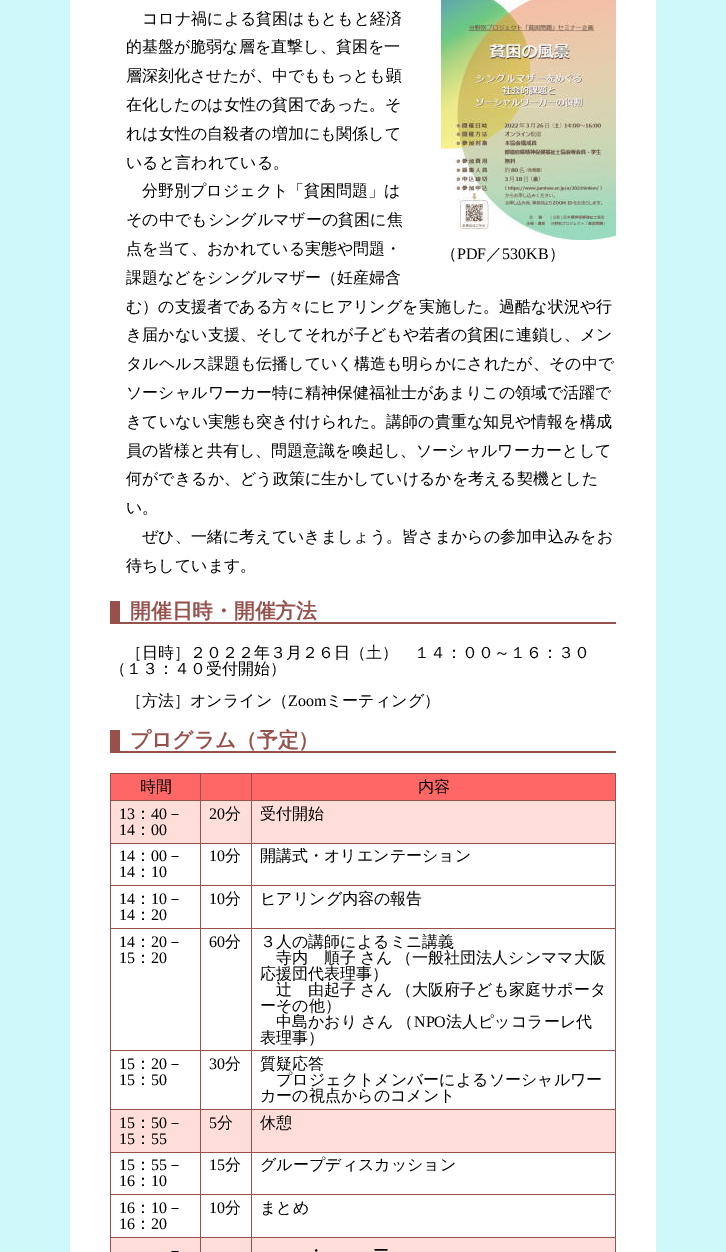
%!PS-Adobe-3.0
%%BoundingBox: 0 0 726 1252
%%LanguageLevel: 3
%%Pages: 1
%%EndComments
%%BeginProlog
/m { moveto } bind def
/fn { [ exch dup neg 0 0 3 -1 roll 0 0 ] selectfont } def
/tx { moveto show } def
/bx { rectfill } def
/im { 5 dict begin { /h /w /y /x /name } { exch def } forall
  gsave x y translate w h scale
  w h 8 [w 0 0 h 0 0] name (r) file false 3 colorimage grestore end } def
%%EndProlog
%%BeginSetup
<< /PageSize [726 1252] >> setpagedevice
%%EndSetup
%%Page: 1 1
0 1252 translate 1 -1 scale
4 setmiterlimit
1 setgray
0 0 726 1252 bx
0.808 0.973 0.976 setrgbcolor
656 0 70 1252 bx
0 0 70 1252 bx
/WenQuanYiZenHei-Medium 16 fn
0 setgray
(コロナ禍による貧困はもともと経済) 142 24 tx
(的基盤が脆弱な層を直撃し、貧困を一) 126 52 tx
(層深刻化させたが、中でももっとも顕) 126 81 tx
(在化したのは女性の貧困であった。そ) 126 110 tx
(れは女性の自殺者の増加にも関係して) 126 139 tx
(いると言われている。) 126 168 tx
(分野別プロジェクト「貧困問題」は) 142 196 tx
(その中でもシングルマザーの貧困に焦) 126 225 tx
(点を当て、おかれている実態や問題・) 126 254 tx
(課題などをシングルマザー（妊産婦含) 126 283 tx
(む）の支援者である方々にヒアリングを実施した。過酷な状況や行) 126 312 tx
(き届かない支援、そしてそれが子どもや若者の貧困に連鎖し、メン) 126 340 tx
(タルヘルス課題も伝播していく構造も明らかにされたが、その中で) 126 369 tx
(ソーシャルワーカー特に精神保健福祉士があまりこの領域で活躍で) 126 398 tx
(きていない実態も突き付けられた。講師の貴重な知見や情報を構成) 126 427 tx
(員の皆様と共有し、問題意識を喚起し、ソーシャルワーカーとして) 126 456 tx
(何ができるか、どう政策に生かしていけるかを考える契機とした) 126 484 tx
(い。) 126 513 tx
(ぜひ、一緒に考えていきましょう。皆さまからの参加申込みをお) 142 542 tx
(待ちしています。) 126 571 tx
(image0.raw) 441 0 175 240 im
(（) 441 259 tx
/LiberationSerif-Regular 16 fn
(PDF) 457 259 tx
/WenQuanYiZenHei-Medium 16 fn
(／) 486 259 tx
/LiberationSerif-Regular 16 fn
(530KB) 502 259 tx
/WenQuanYiZenHei-Medium 16 fn
(）) 549 259 tx
0.588 0.318 0.302 setrgbcolor
120 622 496 2 bx
110 601 10 23 bx
/WenQuanYiZenHei-Bold 20.75 fn
(開催日時・開催方法) 130 618 tx
/WenQuanYiZenHei-Medium 16 fn
0 setgray
(［日時］２０２２年３月２６日（土）　１４：００～１６：３０) 126 658 tx
(（１３：４０受付開始）) 110 674 tx
(［方法］オンライン（) 126 706 tx
/LiberationSerif-Regular 16 fn
(Zoom) 288 706 tx
/WenQuanYiZenHei-Medium 16 fn
(ミーティング）) 326 706 tx
0.588 0.318 0.302 setrgbcolor
120 751 496 2 bx
110 730 10 23 bx
/WenQuanYiZenHei-Bold 20.75 fn
(プログラム（予定）) 130 747 tx
1 0.4 0.4 setrgbcolor
111 774 504 26 bx
0.588 0.318 0.302 setrgbcolor
251 773 365 1 bx
251 800 365 1 bx
1 0.867 0.851 setrgbcolor
111 801 504 42 bx
0.588 0.318 0.302 setrgbcolor
251 843 365 1 bx
251 885 365 1 bx
251 928 365 1 bx
251 1050 365 1 bx
251 1109 365 1 bx
1 0.867 0.851 setrgbcolor
111 1110 504 42 bx
0.588 0.318 0.302 setrgbcolor
251 1152 365 1 bx
251 1194 365 1 bx
251 1237 365 1 bx
1 0.867 0.851 setrgbcolor
111 1238 504 14 bx
0.588 0.318 0.302 setrgbcolor
251 1237 1 15 bx
200 1237 52 1 bx
251 1194 1 44 bx
200 1194 52 1 bx
251 1152 1 43 bx
200 1152 52 1 bx
251 1109 1 44 bx
200 1109 52 1 bx
251 1050 1 60 bx
200 1050 52 1 bx
251 928 1 123 bx
200 928 52 1 bx
251 885 1 44 bx
200 885 52 1 bx
251 843 1 43 bx
200 843 52 1 bx
251 800 1 44 bx
200 800 52 1 bx
251 773 1 28 bx
200 773 52 1 bx
200 1237 1 15 bx
110 1237 91 1 bx
200 1194 1 44 bx
110 1194 91 1 bx
200 1152 1 43 bx
110 1152 91 1 bx
200 1109 1 44 bx
110 1109 91 1 bx
200 1050 1 60 bx
110 1050 91 1 bx
200 928 1 123 bx
110 928 91 1 bx
200 885 1 44 bx
110 885 91 1 bx
200 843 1 43 bx
110 843 91 1 bx
200 800 1 44 bx
110 800 91 1 bx
200 773 1 28 bx
110 773 91 1 bx
110 1237 1 15 bx
110 1194 1 44 bx
110 1152 1 43 bx
110 1109 1 44 bx
110 1050 1 60 bx
110 928 1 123 bx
110 885 1 44 bx
110 843 1 43 bx
110 800 1 44 bx
110 773 1 28 bx
/WenQuanYiZenHei-Medium 16 fn
0 setgray
(時間) 140 792 tx
0.588 0.318 0.302 setrgbcolor
615 1237 1 15 bx
615 1194 1 44 bx
615 1152 1 43 bx
615 1109 1 44 bx
615 1050 1 60 bx
615 928 1 123 bx
615 885 1 44 bx
615 843 1 43 bx
615 800 1 44 bx
615 773 1 28 bx
0 setgray
(内容) 418 792 tx
/LiberationSerif-Regular 16 fn
(13) 119 819 tx
/WenQuanYiZenHei-Medium 16 fn
(：) 135 819 tx
/LiberationSerif-Regular 16 fn
(40) 151 819 tx
/WenQuanYiZenHei-Medium 16 fn
(－) 167 819 tx
/LiberationSerif-Regular 16 fn
(14) 119 835 tx
/WenQuanYiZenHei-Medium 16 fn
(：) 135 835 tx
/LiberationSerif-Regular 16 fn
(00) 151 835 tx
(20) 209 819 tx
/WenQuanYiZenHei-Medium 16 fn
(分) 225 819 tx
(受付開始) 260 819 tx
/LiberationSerif-Regular 16 fn
(14) 119 861 tx
/WenQuanYiZenHei-Medium 16 fn
(：) 135 861 tx
/LiberationSerif-Regular 16 fn
(00) 151 861 tx
/WenQuanYiZenHei-Medium 16 fn
(－) 167 861 tx
/LiberationSerif-Regular 16 fn
(14) 119 877 tx
/WenQuanYiZenHei-Medium 16 fn
(：) 135 877 tx
/LiberationSerif-Regular 16 fn
(10) 151 877 tx
(10) 209 861 tx
/WenQuanYiZenHei-Medium 16 fn
(分) 225 861 tx
(開講式・オリエンテーション) 260 861 tx
/LiberationSerif-Regular 16 fn
(14) 119 904 tx
/WenQuanYiZenHei-Medium 16 fn
(：) 135 904 tx
/LiberationSerif-Regular 16 fn
(10) 151 904 tx
/WenQuanYiZenHei-Medium 16 fn
(－) 167 904 tx
/LiberationSerif-Regular 16 fn
(14) 119 920 tx
/WenQuanYiZenHei-Medium 16 fn
(：) 135 920 tx
/LiberationSerif-Regular 16 fn
(20) 151 920 tx
(10) 209 904 tx
/WenQuanYiZenHei-Medium 16 fn
(分) 225 904 tx
(ヒアリング内容の報告) 260 904 tx
/LiberationSerif-Regular 16 fn
(14) 119 947 tx
/WenQuanYiZenHei-Medium 16 fn
(：) 135 947 tx
/LiberationSerif-Regular 16 fn
(20) 151 947 tx
/WenQuanYiZenHei-Medium 16 fn
(－) 167 947 tx
/LiberationSerif-Regular 16 fn
(15) 119 963 tx
/WenQuanYiZenHei-Medium 16 fn
(：) 135 963 tx
/LiberationSerif-Regular 16 fn
(20) 151 963 tx
(60) 209 947 tx
/WenQuanYiZenHei-Medium 16 fn
(分) 225 947 tx
(３人の講師によるミニ講義) 260 947 tx
276 963 m -1 0 32 (寺内　順子 さん （一般社団法人シンママ大阪) widthshow
(応援団代表理事）) 260 979 tx
276 995 m -1 0 32 (辻　由起子 さん （大阪府子ども家庭サポータ) widthshow
(ーその他）) 260 1011 tx
276 1027 m -1 0 32 (中島かおり さん （) widthshow
/LiberationSerif-Regular 16 fn
(NPO) 414 1027 tx
/WenQuanYiZenHei-Medium 16 fn
(法人ピッコラーレ代) 446 1027 tx
(表理事）) 260 1043 tx
/LiberationSerif-Regular 16 fn
(15) 119 1069 tx
/WenQuanYiZenHei-Medium 16 fn
(：) 135 1069 tx
/LiberationSerif-Regular 16 fn
(20) 151 1069 tx
/WenQuanYiZenHei-Medium 16 fn
(－) 167 1069 tx
/LiberationSerif-Regular 16 fn
(15) 119 1085 tx
/WenQuanYiZenHei-Medium 16 fn
(：) 135 1085 tx
/LiberationSerif-Regular 16 fn
(50) 151 1085 tx
(30) 209 1069 tx
/WenQuanYiZenHei-Medium 16 fn
(分) 225 1069 tx
(質疑応答) 260 1069 tx
(プロジェクトメンバーによるソーシャルワー) 276 1085 tx
(カーの視点からのコメント) 260 1101 tx
/LiberationSerif-Regular 16 fn
(15) 119 1128 tx
/WenQuanYiZenHei-Medium 16 fn
(：) 135 1128 tx
/LiberationSerif-Regular 16 fn
(50) 151 1128 tx
/WenQuanYiZenHei-Medium 16 fn
(－) 167 1128 tx
/LiberationSerif-Regular 16 fn
(15) 119 1144 tx
/WenQuanYiZenHei-Medium 16 fn
(：) 135 1144 tx
/LiberationSerif-Regular 16 fn
(55) 151 1144 tx
(5) 209 1128 tx
/WenQuanYiZenHei-Medium 16 fn
(分) 217 1128 tx
(休憩) 260 1128 tx
/LiberationSerif-Regular 16 fn
(15) 119 1170 tx
/WenQuanYiZenHei-Medium 16 fn
(：) 135 1170 tx
/LiberationSerif-Regular 16 fn
(55) 151 1170 tx
/WenQuanYiZenHei-Medium 16 fn
(－) 167 1170 tx
/LiberationSerif-Regular 16 fn
(16) 119 1186 tx
/WenQuanYiZenHei-Medium 16 fn
(：) 135 1186 tx
/LiberationSerif-Regular 16 fn
(10) 151 1186 tx
(15) 209 1170 tx
/WenQuanYiZenHei-Medium 16 fn
(分) 225 1170 tx
(グループディスカッション) 260 1170 tx
/LiberationSerif-Regular 16 fn
(16) 119 1213 tx
/WenQuanYiZenHei-Medium 16 fn
(：) 135 1213 tx
/LiberationSerif-Regular 16 fn
(10) 151 1213 tx
/WenQuanYiZenHei-Medium 16 fn
(－) 167 1213 tx
/LiberationSerif-Regular 16 fn
(16) 119 1229 tx
/WenQuanYiZenHei-Medium 16 fn
(：) 135 1229 tx
/LiberationSerif-Regular 16 fn
(20) 151 1229 tx
(10) 209 1213 tx
/WenQuanYiZenHei-Medium 16 fn
(分) 225 1213 tx
(まとめ) 260 1213 tx
(－) 167 1256 tx
(・) 308 1256 tx
(ー) 373 1256 tx
showpage
%%EOF
